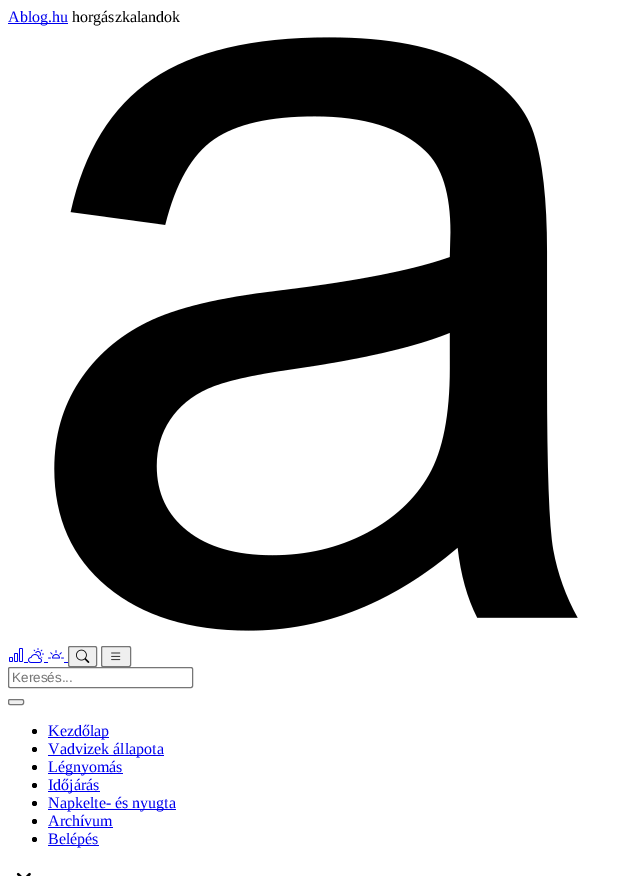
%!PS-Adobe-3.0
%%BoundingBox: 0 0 632 876
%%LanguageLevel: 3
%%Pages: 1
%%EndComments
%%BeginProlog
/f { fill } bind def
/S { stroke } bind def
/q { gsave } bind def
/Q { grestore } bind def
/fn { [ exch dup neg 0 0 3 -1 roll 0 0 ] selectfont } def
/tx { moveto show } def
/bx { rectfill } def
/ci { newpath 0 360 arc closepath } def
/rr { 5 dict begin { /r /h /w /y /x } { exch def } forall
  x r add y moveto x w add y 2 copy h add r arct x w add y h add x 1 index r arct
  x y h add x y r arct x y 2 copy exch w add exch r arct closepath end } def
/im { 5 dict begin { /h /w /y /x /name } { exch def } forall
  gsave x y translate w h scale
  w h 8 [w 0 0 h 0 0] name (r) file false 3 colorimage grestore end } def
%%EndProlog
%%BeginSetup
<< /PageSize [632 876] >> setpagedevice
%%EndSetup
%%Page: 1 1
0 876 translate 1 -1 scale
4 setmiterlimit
1 setgray
0 0 632 876 bx
0 0 0.933 setrgbcolor
8 23 60 1 bx
/LiberationSerif-Regular 16 fn
(Ablog.hu) 8 22 tx
0 setgray
(horgászkalandok) 72 22 tx
(image0.raw) 54 37 524 594 im
(image1.raw) 9 648 14 14 im
0 0 0.933 setrgbcolor
24 662 4 1 bx
(image2.raw) 28 648 16 15 im
44 662 4 1 bx
(image3.raw) 48 650 16 9 im
64 662 4 1 bx
0.937 setgray
68.5 646.5 28 20 1.5 rr q f Q
0.463 setgray
S
(image4.raw) 76 649 14 14 im
0.937 setgray
101.5 646.5 29 20 1.5 rr q f Q
0.463 setgray
S
(image5.raw) 111 652 10 9 im
8.5 667.5 184 20 1.5 rr S
/LiberationSans-Regular 13.5 fn
0.459 setgray
(Keresés...) 12 682 tx
0.937 setgray
8.5 699.5 15 5 1.5 rr q f Q
0.463 setgray
S
0 setgray
34.5 731.5 2.5 ci f
0 0 0.933 setrgbcolor
48 737 61 1 bx
/LiberationSerif-Regular 16 fn
(Kezdőlap) 48 736 tx
0 setgray
34.5 749.5 2.5 ci f
0 0 0.933 setrgbcolor
48 755 116 1 bx
(Vadvizek állapota) 48 754 tx
0 setgray
34.5 767.5 2.5 ci f
0 0 0.933 setrgbcolor
48 773 75 1 bx
(Légnyomás) 48 772 tx
0 setgray
34.5 785.5 2.5 ci f
0 0 0.933 setrgbcolor
48 791 52 1 bx
(Időjárás) 48 790 tx
0 setgray
34.5 803.5 2.5 ci f
0 0 0.933 setrgbcolor
48 809 128 1 bx
(Napkelte- és nyugta) 48 808 tx
0 setgray
34.5 821.5 2.5 ci f
0 0 0.933 setrgbcolor
(Archívum) 48 826 tx
48 827 65 1 bx
0 setgray
34.5 839.5 2.5 ci f
0 0 0.933 setrgbcolor
48 845 51 1 bx
(Belépés) 48 844 tx
(image6.raw) 16 872 15 4 im
showpage
%%EOF
